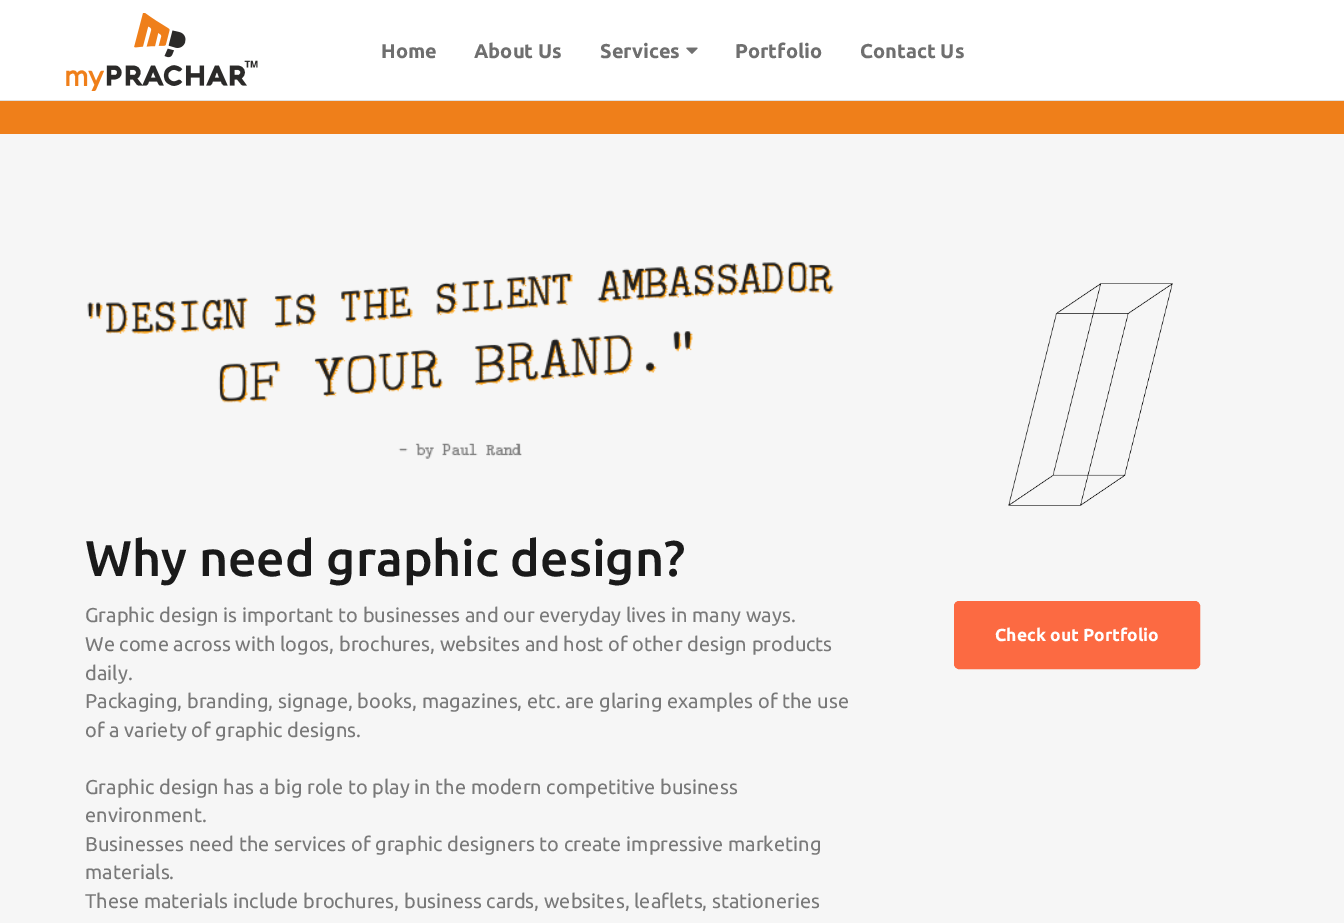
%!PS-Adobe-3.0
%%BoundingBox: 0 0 1344 923
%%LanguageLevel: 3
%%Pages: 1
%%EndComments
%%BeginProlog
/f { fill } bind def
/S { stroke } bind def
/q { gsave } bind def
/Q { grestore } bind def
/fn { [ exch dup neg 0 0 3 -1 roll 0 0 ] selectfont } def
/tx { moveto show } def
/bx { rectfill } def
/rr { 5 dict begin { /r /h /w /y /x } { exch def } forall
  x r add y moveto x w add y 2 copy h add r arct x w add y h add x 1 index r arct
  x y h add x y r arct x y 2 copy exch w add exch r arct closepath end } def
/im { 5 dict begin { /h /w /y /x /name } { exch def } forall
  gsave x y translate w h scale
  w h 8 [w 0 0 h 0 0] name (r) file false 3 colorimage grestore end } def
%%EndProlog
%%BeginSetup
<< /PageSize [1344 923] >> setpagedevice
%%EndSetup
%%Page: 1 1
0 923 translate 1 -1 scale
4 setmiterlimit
0.937 0.498 0.102 setrgbcolor
0 0 1344 923 bx
1 setgray
0 0 1344 100 bx
0.878 setgray
0 100 1344 1 bx
(image0.raw) 66 13 192 78 im
/Ubuntu-Bold 20 fn
0.435 setgray
(Home) 381 58 tx
(About Us) 474 58 tx
(Services) 600 58 tx
(image1.raw) 686 47 12 7 im
(Portfolio) 735 58 tx
(Contact Us) 860 58 tx
0.965 setgray
0 134 1344 789 bx
(image2.raw) 87 261 747 198 im
/Ubuntu-Medium 50 fn
0.102 setgray
(Why need graphic design?) 85 576 tx
/Ubuntu-Regular 20 fn
0.475 setgray
(Graphic design is important to businesses and our everyday lives in many ways.) 85 622 tx
(We come across with logos, brochures, websites and host of other design products) 85 651 tx
(daily.) 85 680 tx
(Packaging, branding, signage, books, magazines, etc. are glaring examples of the use) 85 708 tx
(of a variety of graphic designs.) 85 737 tx
(Graphic design has a big role to play in the modern competitive business) 85 794 tx
(environment.) 85 822 tx
(Businesses need the services of graphic designers to create impressive marketing) 85 851 tx
(materials.) 85 879 tx
(These materials include brochures, business cards, websites, leaflets, stationeries) 85 908 tx
(image3.raw) 1008 283 165 223 im
0.988 0.416 0.259 setrgbcolor
954.5 601.5 245 67 4.5 rr q f Q
S
/Ubuntu-Bold 17.5 fn
1 setgray
(Check out Portfolio) 995 641 tx
showpage
%%EOF
